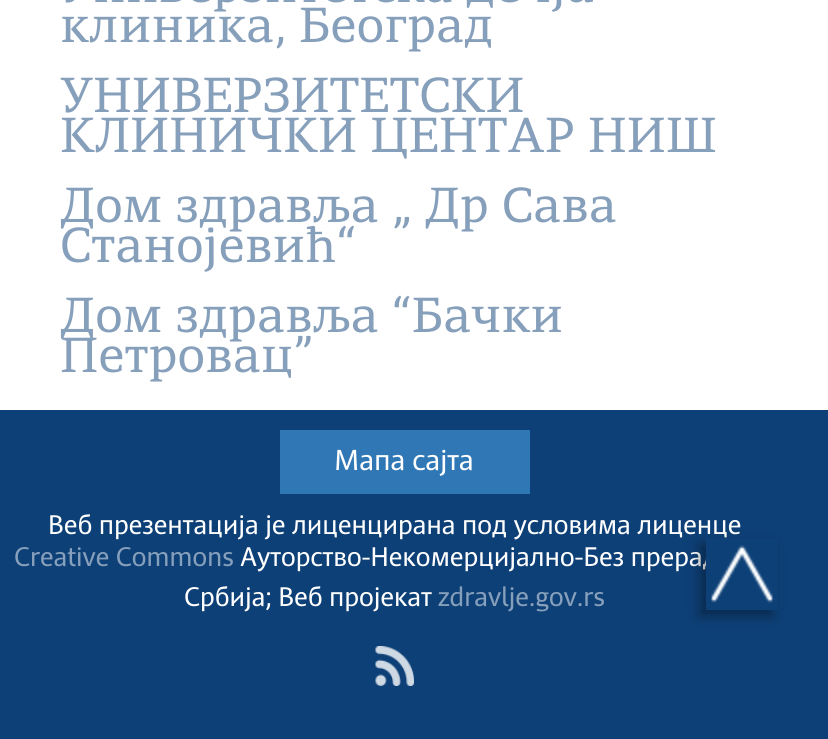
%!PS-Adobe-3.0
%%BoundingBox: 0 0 828 739
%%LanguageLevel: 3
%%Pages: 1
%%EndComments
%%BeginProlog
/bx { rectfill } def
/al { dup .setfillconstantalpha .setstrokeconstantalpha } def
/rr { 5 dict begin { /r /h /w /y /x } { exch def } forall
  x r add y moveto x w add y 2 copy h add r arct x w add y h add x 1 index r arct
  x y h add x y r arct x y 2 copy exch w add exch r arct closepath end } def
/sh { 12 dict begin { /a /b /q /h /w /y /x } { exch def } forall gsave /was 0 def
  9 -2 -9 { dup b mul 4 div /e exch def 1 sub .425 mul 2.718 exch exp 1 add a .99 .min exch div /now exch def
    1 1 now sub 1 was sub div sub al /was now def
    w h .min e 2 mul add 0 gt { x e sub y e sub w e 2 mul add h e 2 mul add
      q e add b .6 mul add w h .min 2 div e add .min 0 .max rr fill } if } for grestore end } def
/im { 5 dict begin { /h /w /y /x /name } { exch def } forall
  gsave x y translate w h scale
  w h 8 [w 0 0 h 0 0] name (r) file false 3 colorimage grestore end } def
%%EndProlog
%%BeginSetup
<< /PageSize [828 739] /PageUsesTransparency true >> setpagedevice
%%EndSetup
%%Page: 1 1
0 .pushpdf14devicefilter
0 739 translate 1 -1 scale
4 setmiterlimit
1 setgray
0 0 828 739 bx
(image0.raw) 65 0 528 12 im
(image1.raw) 62 7 429 45 im
(image2.raw) 60 77 463 36 im
(image3.raw) 61 117 655 42 im
(image4.raw) 60 187 556 45 im
(image5.raw) 62 225 292 47 im
(image6.raw) 60 295 501 47 im
(image7.raw) 61 335 250 47 im
0.051 0.251 0.467 setrgbcolor
0 410 828 329 bx
0.188 0.467 0.71 setrgbcolor
280 430 250 64 bx
(image8.raw) 336 449 136 27 im
(image9.raw) 50 514 691 26 im
(image10.raw) 15 547 218 20 im
(image11.raw) 240 547 466 25 im
(image12.raw) 185 586 247 26 im
(image13.raw) 438 586 166 26 im
(image14.raw) 375 646 39 40 im
0 setgray
700 544 72 72 0 6 0.35 sh
(image15.raw) 706 538 72 72 im
.poppdf14devicefilter showpage
%%EOF
